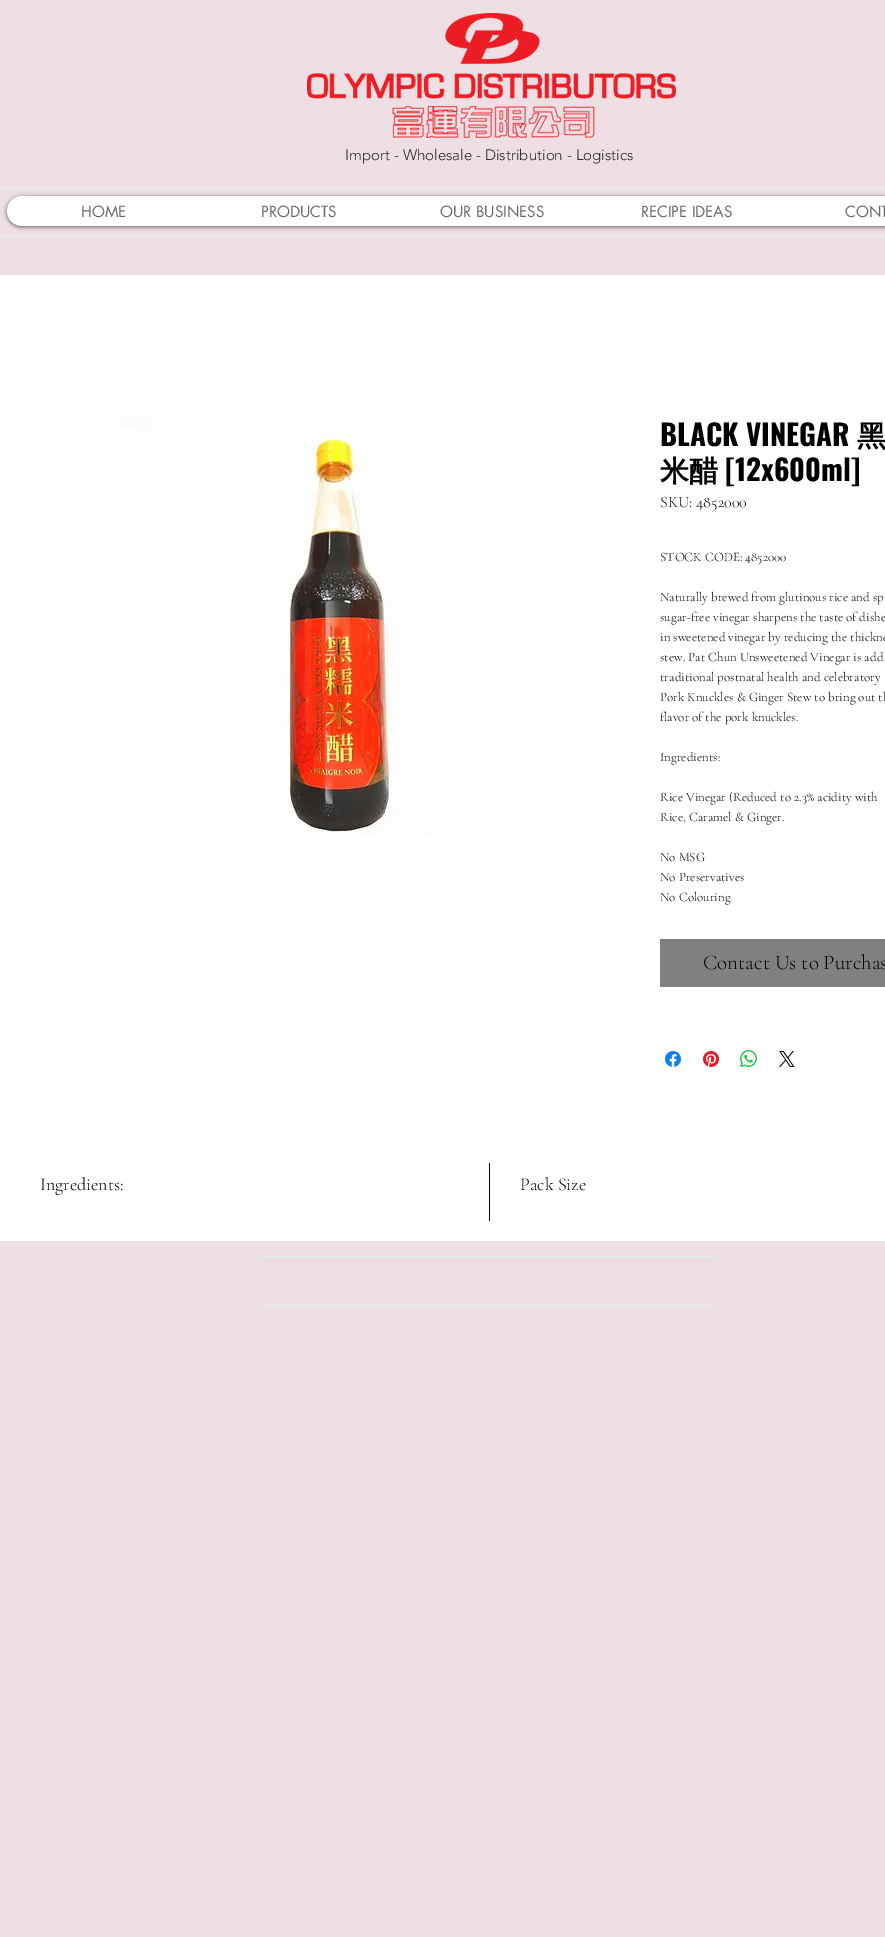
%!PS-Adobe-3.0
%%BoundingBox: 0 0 885 1937
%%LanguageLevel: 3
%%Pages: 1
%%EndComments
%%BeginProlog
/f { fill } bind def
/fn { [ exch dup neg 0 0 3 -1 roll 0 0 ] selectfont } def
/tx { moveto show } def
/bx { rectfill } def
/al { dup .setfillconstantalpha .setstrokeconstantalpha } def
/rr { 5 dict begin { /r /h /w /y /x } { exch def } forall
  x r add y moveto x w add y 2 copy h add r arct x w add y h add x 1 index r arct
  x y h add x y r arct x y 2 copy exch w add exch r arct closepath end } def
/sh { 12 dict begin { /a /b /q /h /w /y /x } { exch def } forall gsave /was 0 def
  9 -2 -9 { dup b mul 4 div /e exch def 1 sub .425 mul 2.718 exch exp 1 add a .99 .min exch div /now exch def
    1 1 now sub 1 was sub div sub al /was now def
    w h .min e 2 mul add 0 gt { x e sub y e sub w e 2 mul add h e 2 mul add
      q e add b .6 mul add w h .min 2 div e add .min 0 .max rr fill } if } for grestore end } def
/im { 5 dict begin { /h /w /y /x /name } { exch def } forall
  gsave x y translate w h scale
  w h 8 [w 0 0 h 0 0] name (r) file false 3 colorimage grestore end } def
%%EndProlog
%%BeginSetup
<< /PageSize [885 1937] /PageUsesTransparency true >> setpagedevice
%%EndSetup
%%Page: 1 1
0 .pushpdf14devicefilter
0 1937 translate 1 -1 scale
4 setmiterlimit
0.929 0.875 0.894 setrgbcolor
0 0 885 1937 bx
(image0.raw) 307 13 369 125 im
/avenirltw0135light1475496-Light 15 fn
0.161 setgray
(Import - Wholesale - Distribution - Logistics) 345 160 tx
0.894 0.933 0.949 setrgbcolor
0 187 885 1 bx
0 setgray
7 197 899 30 15 2 0.6 sh
1 setgray
7 196 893 30 15 rr f
/futura-Regular 15 fn
0.412 setgray
(HOME) 81 217 tx
(PRODUCTS) 261 217 tx
(OUR BUSINESS) 440 217 tx
(RECIPE IDEAS) 641 217 tx
(CONT) 845 217 tx
0.894 0.933 0.949 setrgbcolor
0 236 885 1 bx
1 setgray
0 275 885 966 bx
(image1.raw) 120 416 404 420 im
/Oswald-Bold 29 fn
0 setgray
(BLACK VINEGAR) 660 446 tx
/WenQuanYiZenHei-Bold 29 fn
(黑) 857 446 tx
(米醋) 660 481 tx
/Oswald-Bold 29 fn
([12x600ml]) 725 481 tx
/CormorantGaramond-Light 16 fn
(SKU: 4852000) 660 507 tx
/CormorantGaramond-Light 13 fn
(STOCK CODE: 4852000) 660 561 tx
(Naturally brewed from glutinous rice and sp) 660 601 tx
(sugar-free vinegar sharpens the taste of dishe) 660 621 tx
(in sweetened vinegar by reducing the thickne) 660 641 tx
(stew. Pat Chun Unsweetened Vinegar is add) 660 661 tx
(traditional postnatal health and celebratory) 660 681 tx
(Pork Knuckles & Ginger Stew to bring out th) 660 701 tx
(flavor of the pork knuckles.) 660 721 tx
(Ingredients:) 660 761 tx
(Rice Vinegar \(Reduced to 2.3% acidity with) 660 801 tx
(Rice, Caramel & Ginger.) 660 821 tx
(No MSG) 660 861 tx
(No Preservatives) 660 881 tx
(No Colouring) 660 901 tx
0.502 setgray
660 939 225 48 bx
/CormorantGaramond-Light 21 fn
0 setgray
(Contact Us to Purchas) 703 969 tx
(image2.raw) 665 1051 16 16 im
(image3.raw) 703 1051 16 16 im
(image4.raw) 740 1050 17 17 im
(image5.raw) 779 1051 16 16 im
489 1163 1 58 bx
/CormorantGaramond-Light 18 fn
(Ingredients:) 40 1190 tx
(Pack Size) 520 1190 tx
0.894 0.933 0.949 setrgbcolor
260 1256 457 1 bx
260 1305 457 1 bx
.poppdf14devicefilter showpage
%%EOF
